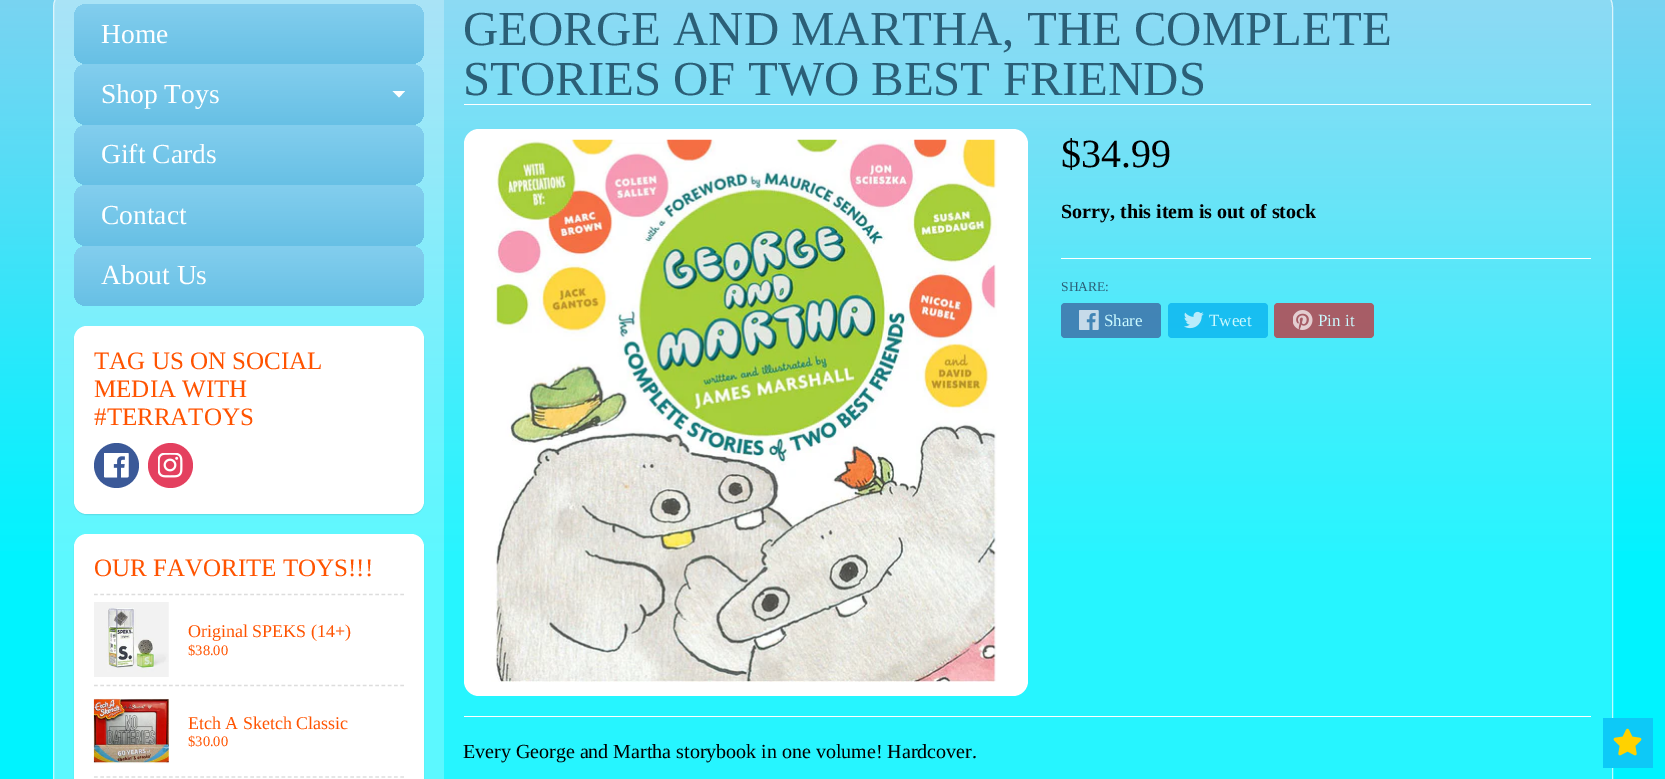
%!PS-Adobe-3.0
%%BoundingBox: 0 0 1665 779
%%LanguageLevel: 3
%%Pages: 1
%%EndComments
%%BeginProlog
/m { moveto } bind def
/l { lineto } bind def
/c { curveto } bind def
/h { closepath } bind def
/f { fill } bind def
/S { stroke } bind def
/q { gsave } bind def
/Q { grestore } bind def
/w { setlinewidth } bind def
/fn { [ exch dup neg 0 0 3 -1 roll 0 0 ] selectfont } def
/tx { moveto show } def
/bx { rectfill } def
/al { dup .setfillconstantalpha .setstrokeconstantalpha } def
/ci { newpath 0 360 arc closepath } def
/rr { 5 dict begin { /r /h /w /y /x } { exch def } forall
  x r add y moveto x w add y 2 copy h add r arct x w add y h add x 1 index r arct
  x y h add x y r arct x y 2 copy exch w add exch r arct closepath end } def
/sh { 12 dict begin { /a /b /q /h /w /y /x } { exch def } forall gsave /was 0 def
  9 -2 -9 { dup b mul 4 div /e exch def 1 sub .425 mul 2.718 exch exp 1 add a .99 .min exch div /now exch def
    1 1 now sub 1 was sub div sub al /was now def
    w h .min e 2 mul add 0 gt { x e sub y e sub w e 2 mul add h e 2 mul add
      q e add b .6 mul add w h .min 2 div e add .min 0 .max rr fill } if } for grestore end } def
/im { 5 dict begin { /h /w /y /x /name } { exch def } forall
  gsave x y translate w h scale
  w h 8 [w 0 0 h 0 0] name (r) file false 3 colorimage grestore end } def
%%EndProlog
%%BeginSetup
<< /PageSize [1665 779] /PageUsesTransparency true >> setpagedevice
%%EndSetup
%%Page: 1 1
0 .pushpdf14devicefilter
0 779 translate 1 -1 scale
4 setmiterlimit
0 0.953 1 setrgbcolor
0 0 1665 779 bx
(image0.raw) 0 0 1665 551 im
0.15 al
1 setgray
53 -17 1560 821 25 rr f
0.7 al
53.5 -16.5 1559 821 24.5 rr S
0.25 al
78 -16 m 444 -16 l 444 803 l 78 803 l 64.5 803 54 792.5 54 779 c 54 8 l 54 -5.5 64.5 -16 78 -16 c h f
1 al
q 74 4 350 60 13 rr clip newpath
<< /ShadingType 2 /ColorSpace /DeviceRGB /Coords [249 3.7 249 64] /Extend [true true] /Function << /FunctionType 2 /Domain [0 1] /C0 [0.514 0.808 0.933] /C1 [0.404 0.753 0.898] /N 1 >> >> shfill Q
/LiberationSerif-Regular 27.5 fn
(Home) 101 43 tx
q 74 64 350 61 13 rr clip newpath
<< /ShadingType 2 /ColorSpace /DeviceRGB /Coords [249 64 249 125] /Extend [true true] /Function << /FunctionType 2 /Domain [0 1] /C0 [0.514 0.808 0.933] /C1 [0.404 0.753 0.898] /N 1 >> >> shfill Q
(Shop Toys) 101 103 tx
392.5 91 m 405 91 l 399 97.5 l h f
q 74 125 350 60 13 rr clip newpath
<< /ShadingType 2 /ColorSpace /DeviceRGB /Coords [249 125 249 185] /Extend [true true] /Function << /FunctionType 2 /Domain [0 1] /C0 [0.514 0.808 0.933] /C1 [0.404 0.753 0.898] /N 1 >> >> shfill Q
(Gift Cards) 101 163 tx
q 74 185 350 61 13 rr clip newpath
<< /ShadingType 2 /ColorSpace /DeviceRGB /Coords [249 185 249 246] /Extend [true true] /Function << /FunctionType 2 /Domain [0 1] /C0 [0.514 0.808 0.933] /C1 [0.404 0.753 0.898] /N 1 >> >> shfill Q
(Contact) 101 224 tx
q 74 246 350 60 13 rr clip newpath
<< /ShadingType 2 /ColorSpace /DeviceRGB /Coords [249 246 249 306] /Extend [true true] /Function << /FunctionType 2 /Domain [0 1] /C0 [0.514 0.808 0.933] /C1 [0.404 0.753 0.898] /N 1 >> >> shfill Q
(About Us) 101 284 tx
0 setgray
74 328 350 187 13 0.5 0.1 sh
1 setgray
74 326 350 188 13 rr f
/LiberationSerif-Regular 25 fn
1 0.325 0 setrgbcolor
(TAG US ON SOCIAL) 94 369 tx
(MEDIA WITH) 94 397 tx
(#TERRATOYS) 94 425 tx
0.231 0.349 0.596 setrgbcolor
116.5 465.5 22.5 ci f
(image1.raw) 104 453 25 25 im
0.894 0.251 0.373 setrgbcolor
170.5 465.5 22.5 ci f
(image2.raw) 158 453 25 25 im
0 setgray
74 535 350 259 13 0.5 0.1 sh
1 setgray
74 534 350 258 13 rr f
1 0.325 0 setrgbcolor
(OUR FAVORITE TOYS!!!) 94 576 tx
0.867 setgray
1.2 w
[3.75 2.5] 0 setdash
94 594.5 m 404 594.5 l S
(image3.raw) 94 602 75 75 im
/LiberationSerif-Regular 18 fn
1 0.325 0 setrgbcolor
(Original SPEKS \(14+\)) 188 637 tx
/LiberationSerif-Regular 14.5 fn
($38.00) 188 655 tx
0.867 setgray
94 685.5 m 404 685.5 l S
(image4.raw) 93 698 76 66 im
/LiberationSerif-Regular 18 fn
1 0.325 0 setrgbcolor
(Etch A Sketch Classic) 188 729 tx
/LiberationSerif-Regular 14.5 fn
($30.00) 188 746 tx
0.867 setgray
94 777 m 404 777 l S
1 setgray
464 104 1127 1 bx
/LiberationSerif-Regular 48.8 fn
0.169 0.373 0.467 setrgbcolor
(GEORGE AND MARTHA, THE COMPLETE) 463 45 tx
(STORIES OF TWO BEST FRIENDS) 463 95 tx
1 setgray
464 129 564 567 15 rr f
(image5.raw) 491 139 506 543 im
/LiberationSerif-Regular 40 fn
0 setgray
($34.99) 1061 167 tx
/LiberationSerif-Bold 20 fn
(Sorry, this item is out of stock) 1061 218 tx
1 setgray
1061 258 530 1 bx
/LiberationSerif-Regular 13.5 fn
0.169 0.373 0.467 setrgbcolor
(SHARE:) 1061 291 tx
0.7 al
0.231 0.349 0.596 setrgbcolor
1061 303 100 35 4 rr f
1 al
(image6.raw) 1079 310 20 20 im
/LiberationSerif-Regular 17 fn
0.792 0.976 0.996 setrgbcolor
(Share) 1104 326 tx
0.7 al
0 0.675 0.929 setrgbcolor
1168 303 100 35 4 rr f
1 al
(image7.raw) 1184 311 20 18 im
0.792 0.976 0.996 setrgbcolor
(Tweet) 1209 326 tx
0.7 al
0.8 0.129 0.153 setrgbcolor
1274 303 100 35 4 rr f
1 al
(image8.raw) 1293 310 20 20 im
0.792 0.976 0.996 setrgbcolor
(Pin it) 1318 326 tx
1 setgray
464 716 1127 1 bx
/LiberationSerif-Regular 20 fn
0 setgray
(Every George and Martha storybook in one volume! Hardcover.) 463 758 tx
0.051 0.788 0.969 setrgbcolor
1603 718 50 50 bx
(image9.raw) 1613 728 29 28 im
.poppdf14devicefilter showpage
%%EOF
